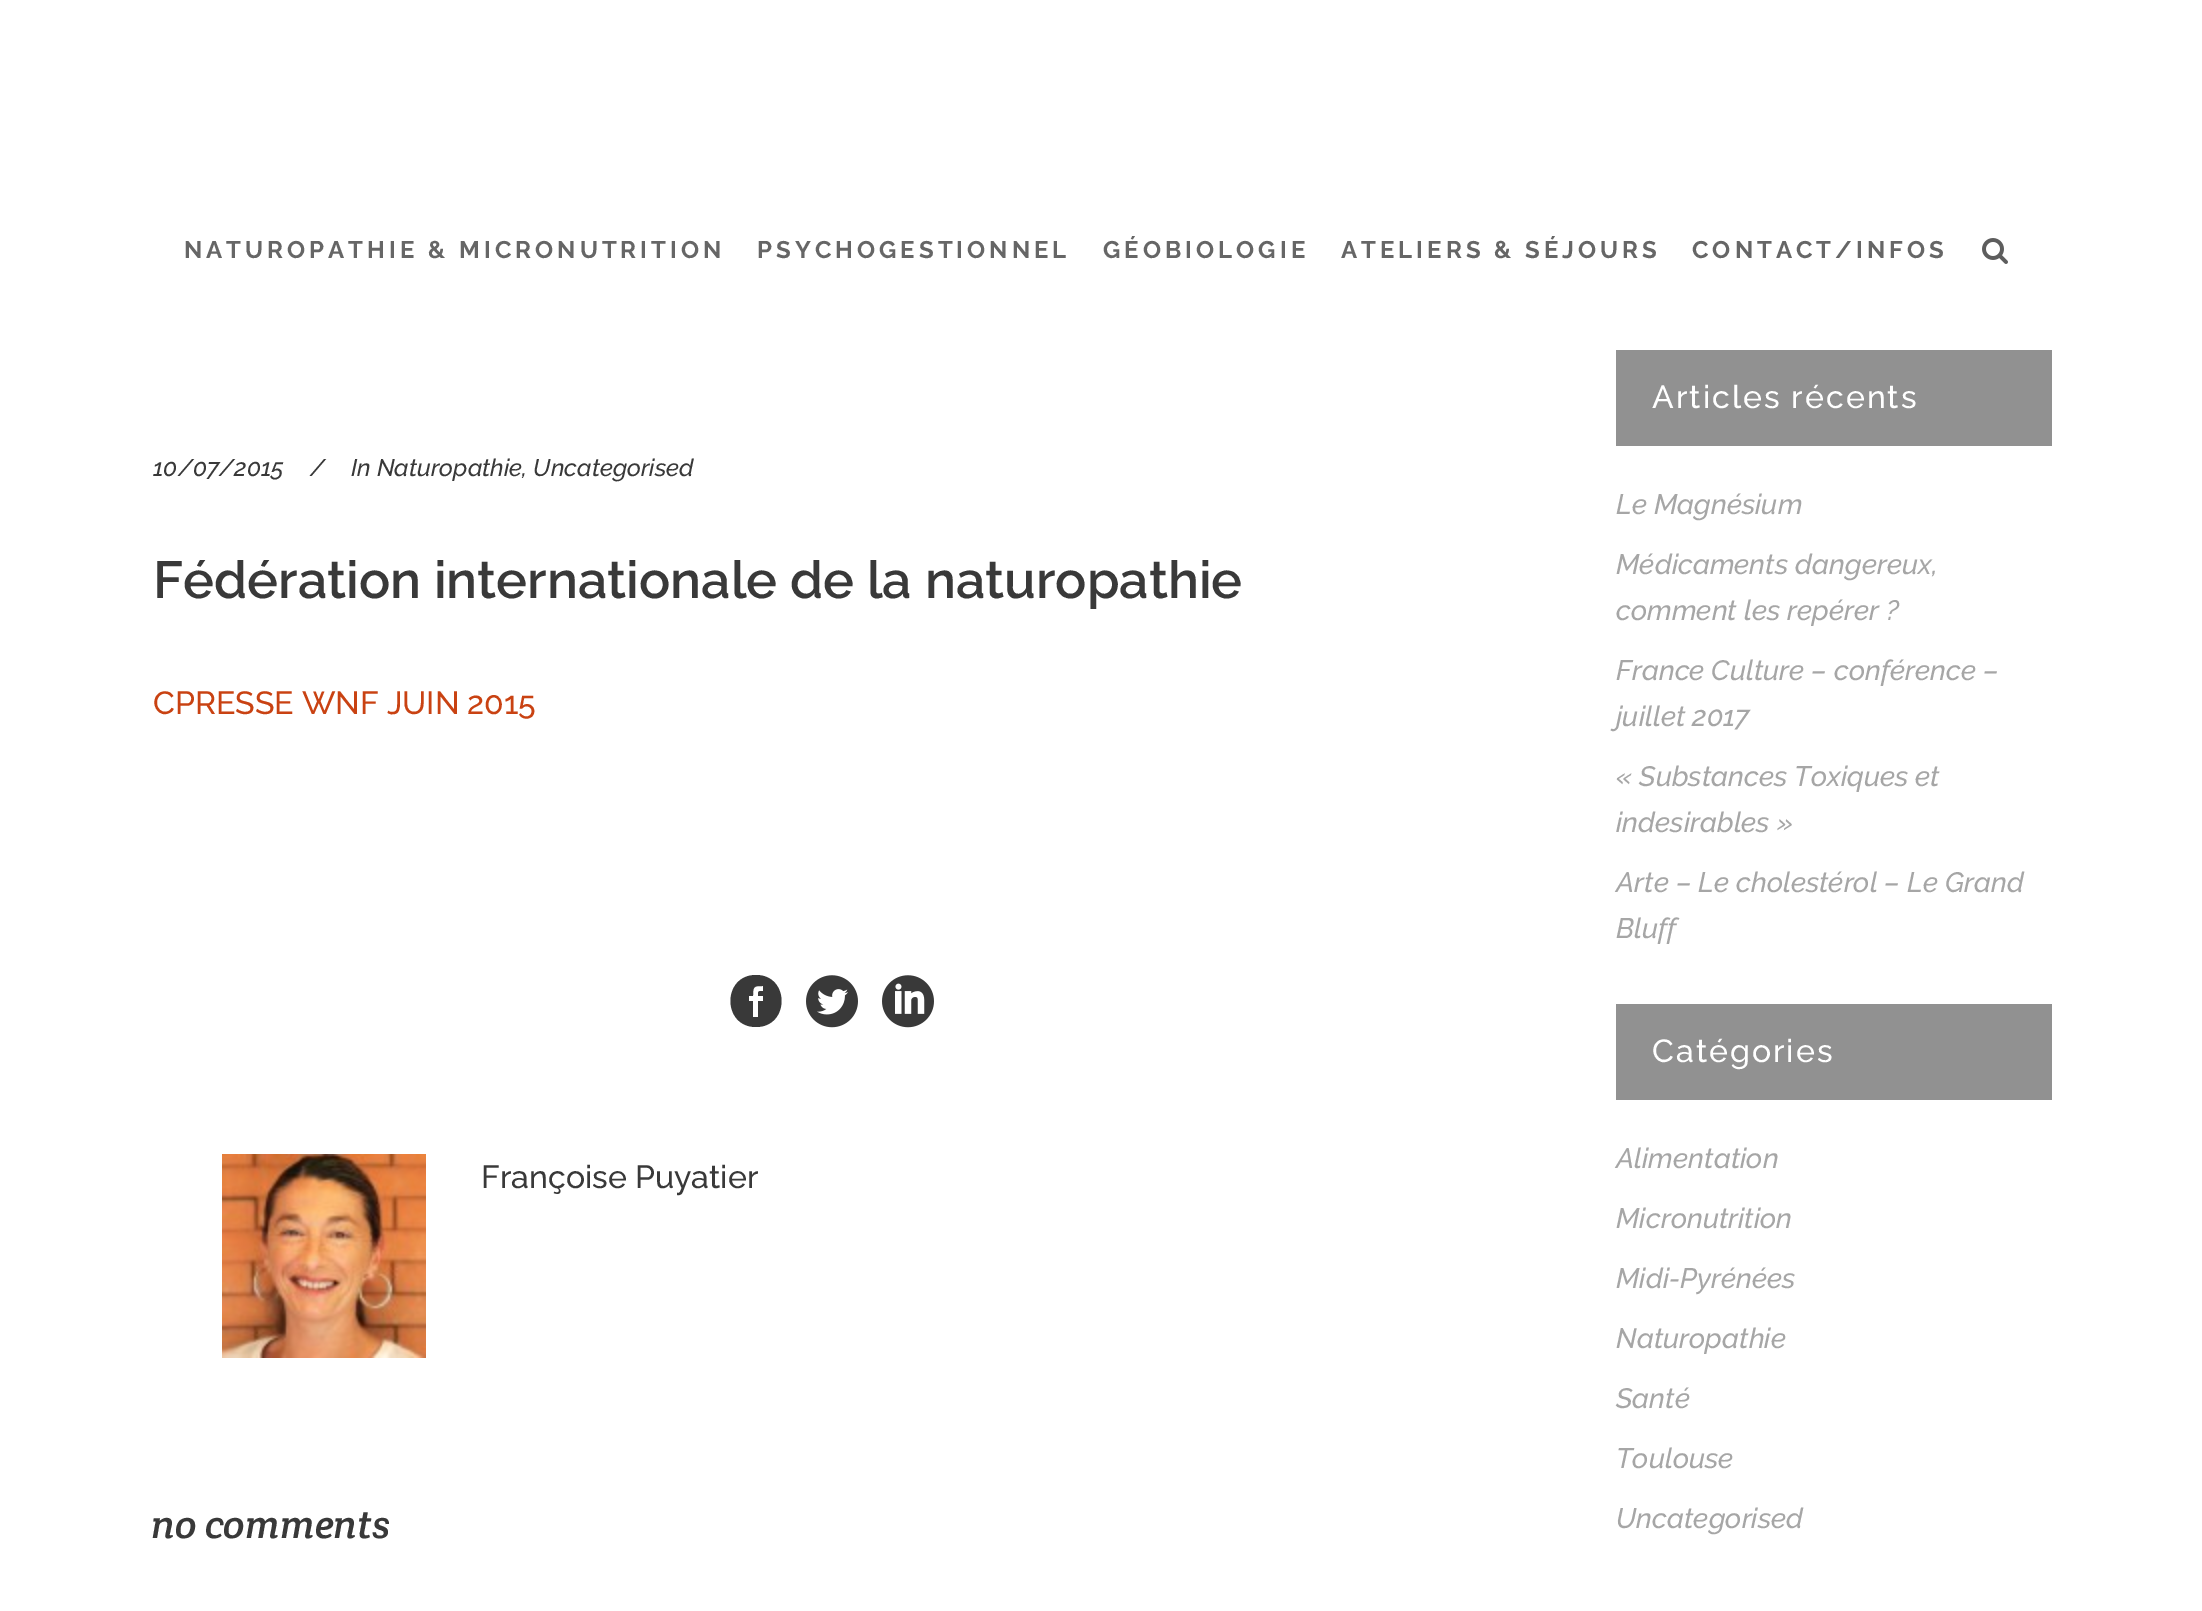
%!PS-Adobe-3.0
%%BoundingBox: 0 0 2202 1611
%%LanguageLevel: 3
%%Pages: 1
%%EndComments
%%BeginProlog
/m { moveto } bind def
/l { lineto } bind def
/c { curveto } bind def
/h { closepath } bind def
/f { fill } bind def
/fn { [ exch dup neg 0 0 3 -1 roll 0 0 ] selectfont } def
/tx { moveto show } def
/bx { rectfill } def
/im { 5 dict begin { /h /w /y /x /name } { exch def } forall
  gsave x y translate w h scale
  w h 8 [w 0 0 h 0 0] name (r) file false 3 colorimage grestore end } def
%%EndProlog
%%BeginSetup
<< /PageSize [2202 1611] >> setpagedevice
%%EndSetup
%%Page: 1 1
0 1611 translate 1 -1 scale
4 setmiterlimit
1 setgray
0 0 2202 1611 bx
/Raleway-Bold 24 fn
0.4 setgray
184 258 m 4 0 (NATUROPATHIE & MICRONUTRITION) ashow
757 258 m 4 0 (PSYCHOGESTIONNEL) ashow
1103 258 m 4 0 (GÉOBIOLOGIE) ashow
1341 258 m 4 0 (ATELIERS & SÉJOURS) ashow
1692 258 m 4 0 (CONTACT/INFOS) ashow
(image0.raw) 1982 238 26 26 im
/Raleway-MediumItalic 24 fn
0.224 setgray
(10/07/2015) 153 476 tx
(/) 310 476 tx
(In Naturopathie, Uncategorised) 351 476 tx
/Raleway-SemiBold 52 fn
(Fédération internationale de la naturopathie) 153 598 tx
/Raleway-Medium 32 fn
0.788 0.259 0.071 setrgbcolor
(CPRESSE WNF JUIN 2015) 153 714 tx
0.224 setgray
756 975 m 790 975 790 1027 756 1027 c 722 1027 722 975 756 975 c h 763 1001 m 763 996 l 758 996 l 758 991 758 991 763 991 c 763 986 l 754 986 753 986 753 996 c 749 996 l 749 1001 l 753 1001 l 753 1017 l 758 1017 l 758 1001 l h f
(image1.raw) 806 975 52 53 im
(image2.raw) 882 975 52 53 im
(image3.raw) 222 1154 204 204 im
(Françoise Puyatier) 481 1188 tx
/CreteRound-Italic 40 fn
(no comments) 151 1538 tx
0.569 setgray
1616 350 436 96 bx
/Raleway-Medium 32 fn
1 setgray
1652 408 m 2 0 (Articles récents) ashow
/Raleway-MediumItalic 28 fn
0.651 setgray
(Le Magnésium) 1616 514 tx
(Médicaments dangereux,) 1616 574 tx
(comment les repérer ?) 1616 620 tx
(France Culture – conférence –) 1616 680 tx
(juillet 2017) 1616 726 tx
(« Substances Toxiques et) 1616 786 tx
(indesirables ») 1616 832 tx
(Arte – Le cholestérol – Le Grand) 1616 892 tx
(Bluff) 1616 938 tx
0.569 setgray
1616 1004 436 96 bx
/Raleway-Medium 32 fn
1 setgray
1652 1062 m 2 0 (Catégories) ashow
/Raleway-MediumItalic 28 fn
0.651 setgray
(Alimentation) 1616 1168 tx
(Micronutrition) 1616 1228 tx
(Midi-Pyrénées) 1616 1288 tx
(Naturopathie) 1616 1348 tx
(Santé) 1616 1408 tx
(Toulouse) 1616 1468 tx
(Uncategorised) 1616 1528 tx
showpage
%%EOF
